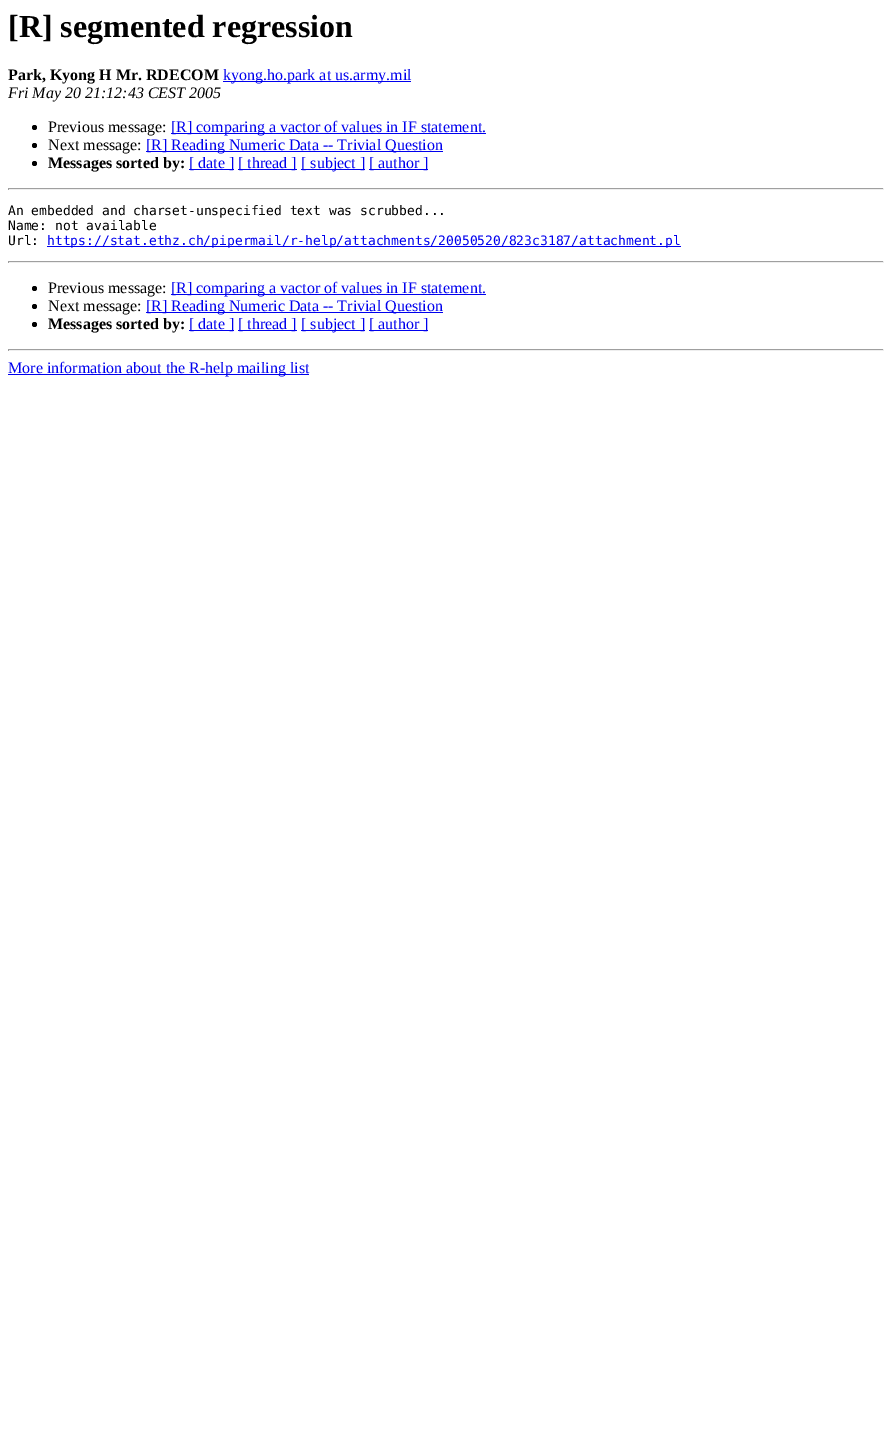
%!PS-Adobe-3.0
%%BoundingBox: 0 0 892 1440
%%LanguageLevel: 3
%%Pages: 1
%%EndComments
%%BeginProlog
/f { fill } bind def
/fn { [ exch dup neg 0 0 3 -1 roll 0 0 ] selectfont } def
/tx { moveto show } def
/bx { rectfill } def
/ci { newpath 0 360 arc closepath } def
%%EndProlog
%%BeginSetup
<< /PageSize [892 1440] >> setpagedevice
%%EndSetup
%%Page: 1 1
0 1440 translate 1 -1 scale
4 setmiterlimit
1 setgray
0 0 892 1440 bx
/LiberationSerif-Bold 32 fn
0 setgray
([R] segmented regression) 8 37 tx
/LiberationSerif-Bold 16 fn
(Park, Kyong H Mr. RDECOM) 8 80 tx
0 0 0.933 setrgbcolor
223 81 188 1 bx
/LiberationSerif-Regular 16 fn
(kyong.ho.park at us.army.mil) 223 80 tx
/LiberationSerif-Italic 16 fn
0 setgray
(Fri May 20 21:12:43 CEST 2005) 8 98 tx
34.5 127.5 2.5 ci f
/LiberationSerif-Regular 16 fn
(Previous message:) 48 132 tx
0 0 0.933 setrgbcolor
171 133 315 1 bx
([R] comparing a vactor of values in IF statement.) 171 132 tx
0 setgray
34.5 145.5 2.5 ci f
(Next message:) 48 150 tx
0 0 0.933 setrgbcolor
146 151 297 1 bx
([R] Reading Numeric Data -- Trivial Question) 146 150 tx
0 setgray
34.5 163.5 2.5 ci f
/LiberationSerif-Bold 16 fn
(Messages sorted by:) 48 168 tx
0 0 0.933 setrgbcolor
189 169 45 1 bx
/LiberationSerif-Regular 16 fn
([ date ]) 189 168 tx
238 169 59 1 bx
([ thread ]) 238 168 tx
301 169 64 1 bx
([ subject ]) 301 168 tx
369 169 59 1 bx
([ author ]) 369 168 tx
0.624 setgray
8 188 876 1 bx
0.933 setgray
883 188 1 2 bx
8 189 876 1 bx
0.624 setgray
8 188 1 2 bx
/DejaVuSansMono-Regular 13 fn
0 setgray
(An embedded and charset-unspecified text was scrubbed...) 8 215 tx
(Name: not available) 8 230 tx
(Url:) 8 245 tx
0 0 0.933 setrgbcolor
47 246 634 1 bx
(https://stat.ethz.ch/pipermail/r-help/attachments/20050520/823c3187/attachment.pl) 47 245 tx
0.624 setgray
8 261 876 1 bx
0.933 setgray
883 261 1 2 bx
8 262 876 1 bx
0.624 setgray
8 261 1 2 bx
0 setgray
34.5 288.5 2.5 ci f
/LiberationSerif-Regular 16 fn
(Previous message:) 48 293 tx
0 0 0.933 setrgbcolor
171 294 315 1 bx
([R] comparing a vactor of values in IF statement.) 171 293 tx
0 setgray
34.5 306.5 2.5 ci f
(Next message:) 48 311 tx
0 0 0.933 setrgbcolor
146 312 297 1 bx
([R] Reading Numeric Data -- Trivial Question) 146 311 tx
0 setgray
34.5 324.5 2.5 ci f
/LiberationSerif-Bold 16 fn
(Messages sorted by:) 48 329 tx
0 0 0.933 setrgbcolor
189 330 45 1 bx
/LiberationSerif-Regular 16 fn
([ date ]) 189 329 tx
238 330 59 1 bx
([ thread ]) 238 329 tx
301 330 64 1 bx
([ subject ]) 301 329 tx
369 330 59 1 bx
([ author ]) 369 329 tx
0.624 setgray
8 349 876 1 bx
0.933 setgray
883 349 1 2 bx
8 350 876 1 bx
0.624 setgray
8 349 1 2 bx
0 0 0.933 setrgbcolor
8 374 301 1 bx
(More information about the R-help mailing list) 8 373 tx
showpage
%%EOF
